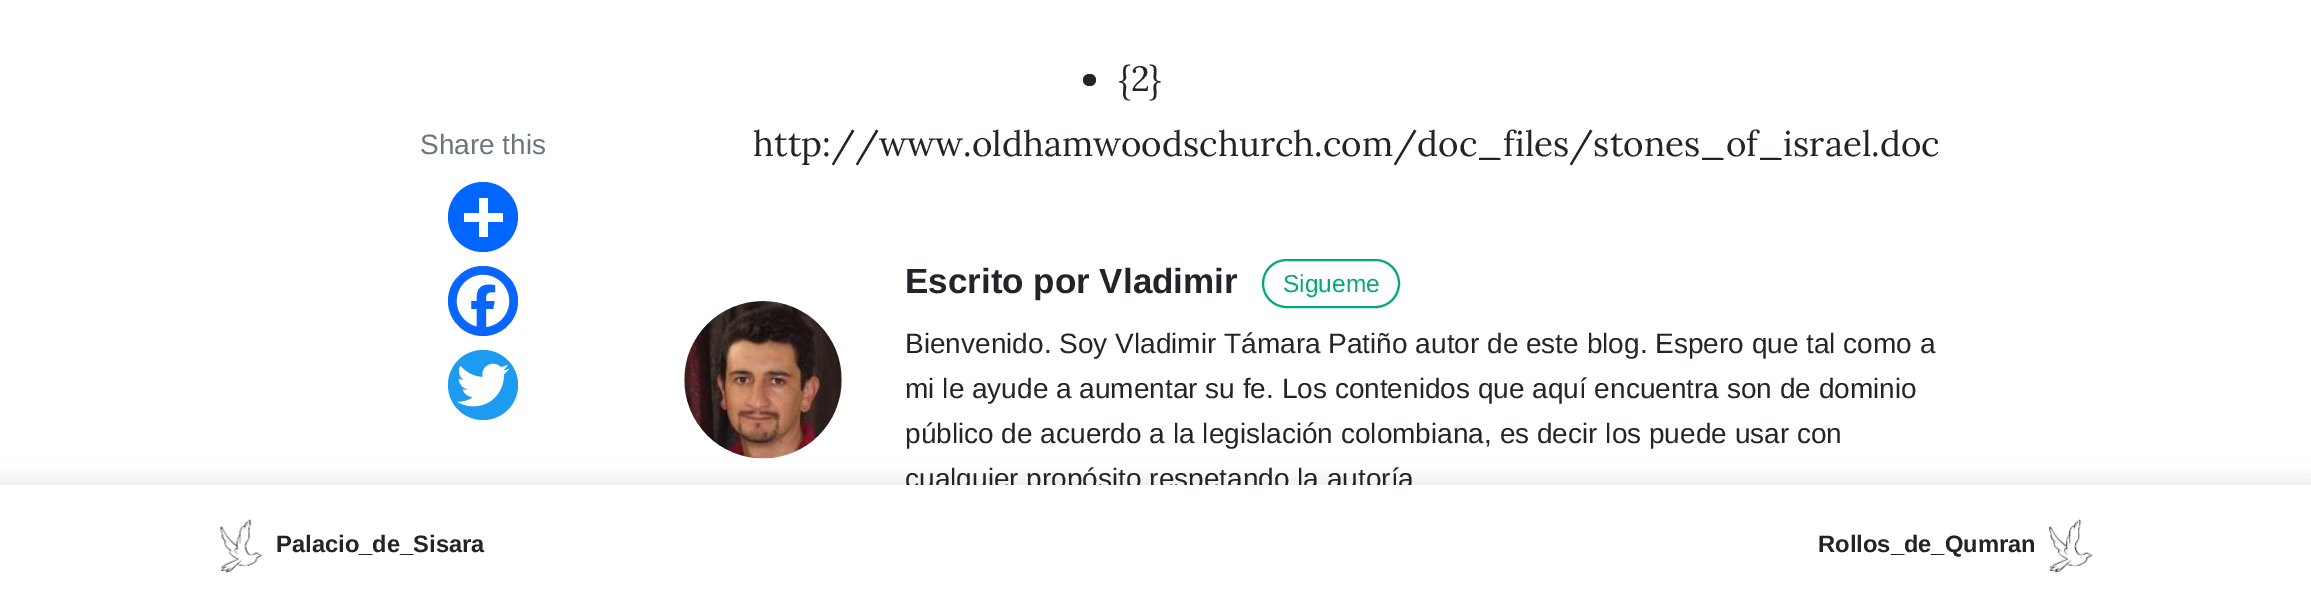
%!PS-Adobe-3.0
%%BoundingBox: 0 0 2311 607
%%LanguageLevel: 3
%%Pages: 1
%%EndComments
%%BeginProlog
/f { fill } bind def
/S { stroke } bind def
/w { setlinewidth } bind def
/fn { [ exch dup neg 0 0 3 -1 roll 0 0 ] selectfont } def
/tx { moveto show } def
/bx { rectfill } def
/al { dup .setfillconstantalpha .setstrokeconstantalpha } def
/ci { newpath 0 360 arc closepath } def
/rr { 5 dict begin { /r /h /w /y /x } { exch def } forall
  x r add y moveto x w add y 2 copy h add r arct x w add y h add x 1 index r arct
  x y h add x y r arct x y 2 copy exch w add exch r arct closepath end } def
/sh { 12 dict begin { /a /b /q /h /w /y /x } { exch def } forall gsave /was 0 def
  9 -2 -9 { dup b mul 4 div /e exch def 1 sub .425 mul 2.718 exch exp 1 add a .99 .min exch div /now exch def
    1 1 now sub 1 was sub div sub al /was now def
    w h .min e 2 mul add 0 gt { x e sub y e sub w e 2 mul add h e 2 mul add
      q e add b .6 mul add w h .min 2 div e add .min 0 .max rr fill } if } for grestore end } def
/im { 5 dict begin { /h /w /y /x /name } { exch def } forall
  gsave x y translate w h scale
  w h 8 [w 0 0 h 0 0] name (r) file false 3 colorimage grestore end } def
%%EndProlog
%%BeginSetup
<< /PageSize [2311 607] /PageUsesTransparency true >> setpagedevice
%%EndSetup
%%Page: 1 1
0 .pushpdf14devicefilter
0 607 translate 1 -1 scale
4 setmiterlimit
1 setgray
0 0 2311 607 bx
/LiberationSans-Regular 28 fn
0.424 0.459 0.49 setrgbcolor
(Share this) 420 154 tx
0.004 0.4 1 setrgbcolor
483 217 35 ci f
1 setgray
479 198 9 39 bx
464 213 39 9 bx
0.031 0.4 1 setrgbcolor
483 301 35 ci f
(image0.raw) 456 274 54 53 im
0.114 0.608 0.941 setrgbcolor
483 385 35 ci f
(image1.raw) 457 363 53 44 im
0.129 0.145 0.161 setrgbcolor
1083 74 13 12 6 rr f
/Lora-Regular 35 fn
({2}) 1119 91 tx
(http://www.oldhamwoodschurch.com/doc_files/stones_of_israel.doc) 753 156 tx
(image2.raw) 684 301 158 158 im
/LiberationSans-Bold 35 fn
(Escrito por Vladimir) 905 293 tx
0.012 0.659 0.486 setrgbcolor
2 w
1263 260 136 47 23.5 rr S
/LiberationSans-Regular 24.5 fn
(Sigueme) 1283 292 tx
/LiberationSans-Regular 28 fn
0.129 0.145 0.161 setrgbcolor
(Bienvenido. Soy Vladimir Támara Patiño autor de este blog. Espero que tal como a) 905 353 tx
(mi le ayude a aumentar su fe. Los contenidos que aquí encuentra son de dominio) 905 398 tx
(público de acuerdo a la legislación colombiana, es decir los puede usar con) 905 443 tx
(cualquier propósito respetando la autoría) 905 488 tx
0 setgray
0 480 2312 122 0 9 0.08 sh
1 setgray
0 485 2311 122 bx
(image3.raw) 220 519 43 54 im
/LiberationSans-Bold 23.75 fn
0.129 0.145 0.161 setrgbcolor
(Palacio_de_Sisara) 276 552 tx
(Rollos_de_Qumran) 1818 552 tx
(image4.raw) 2049 519 44 54 im
.poppdf14devicefilter showpage
%%EOF
